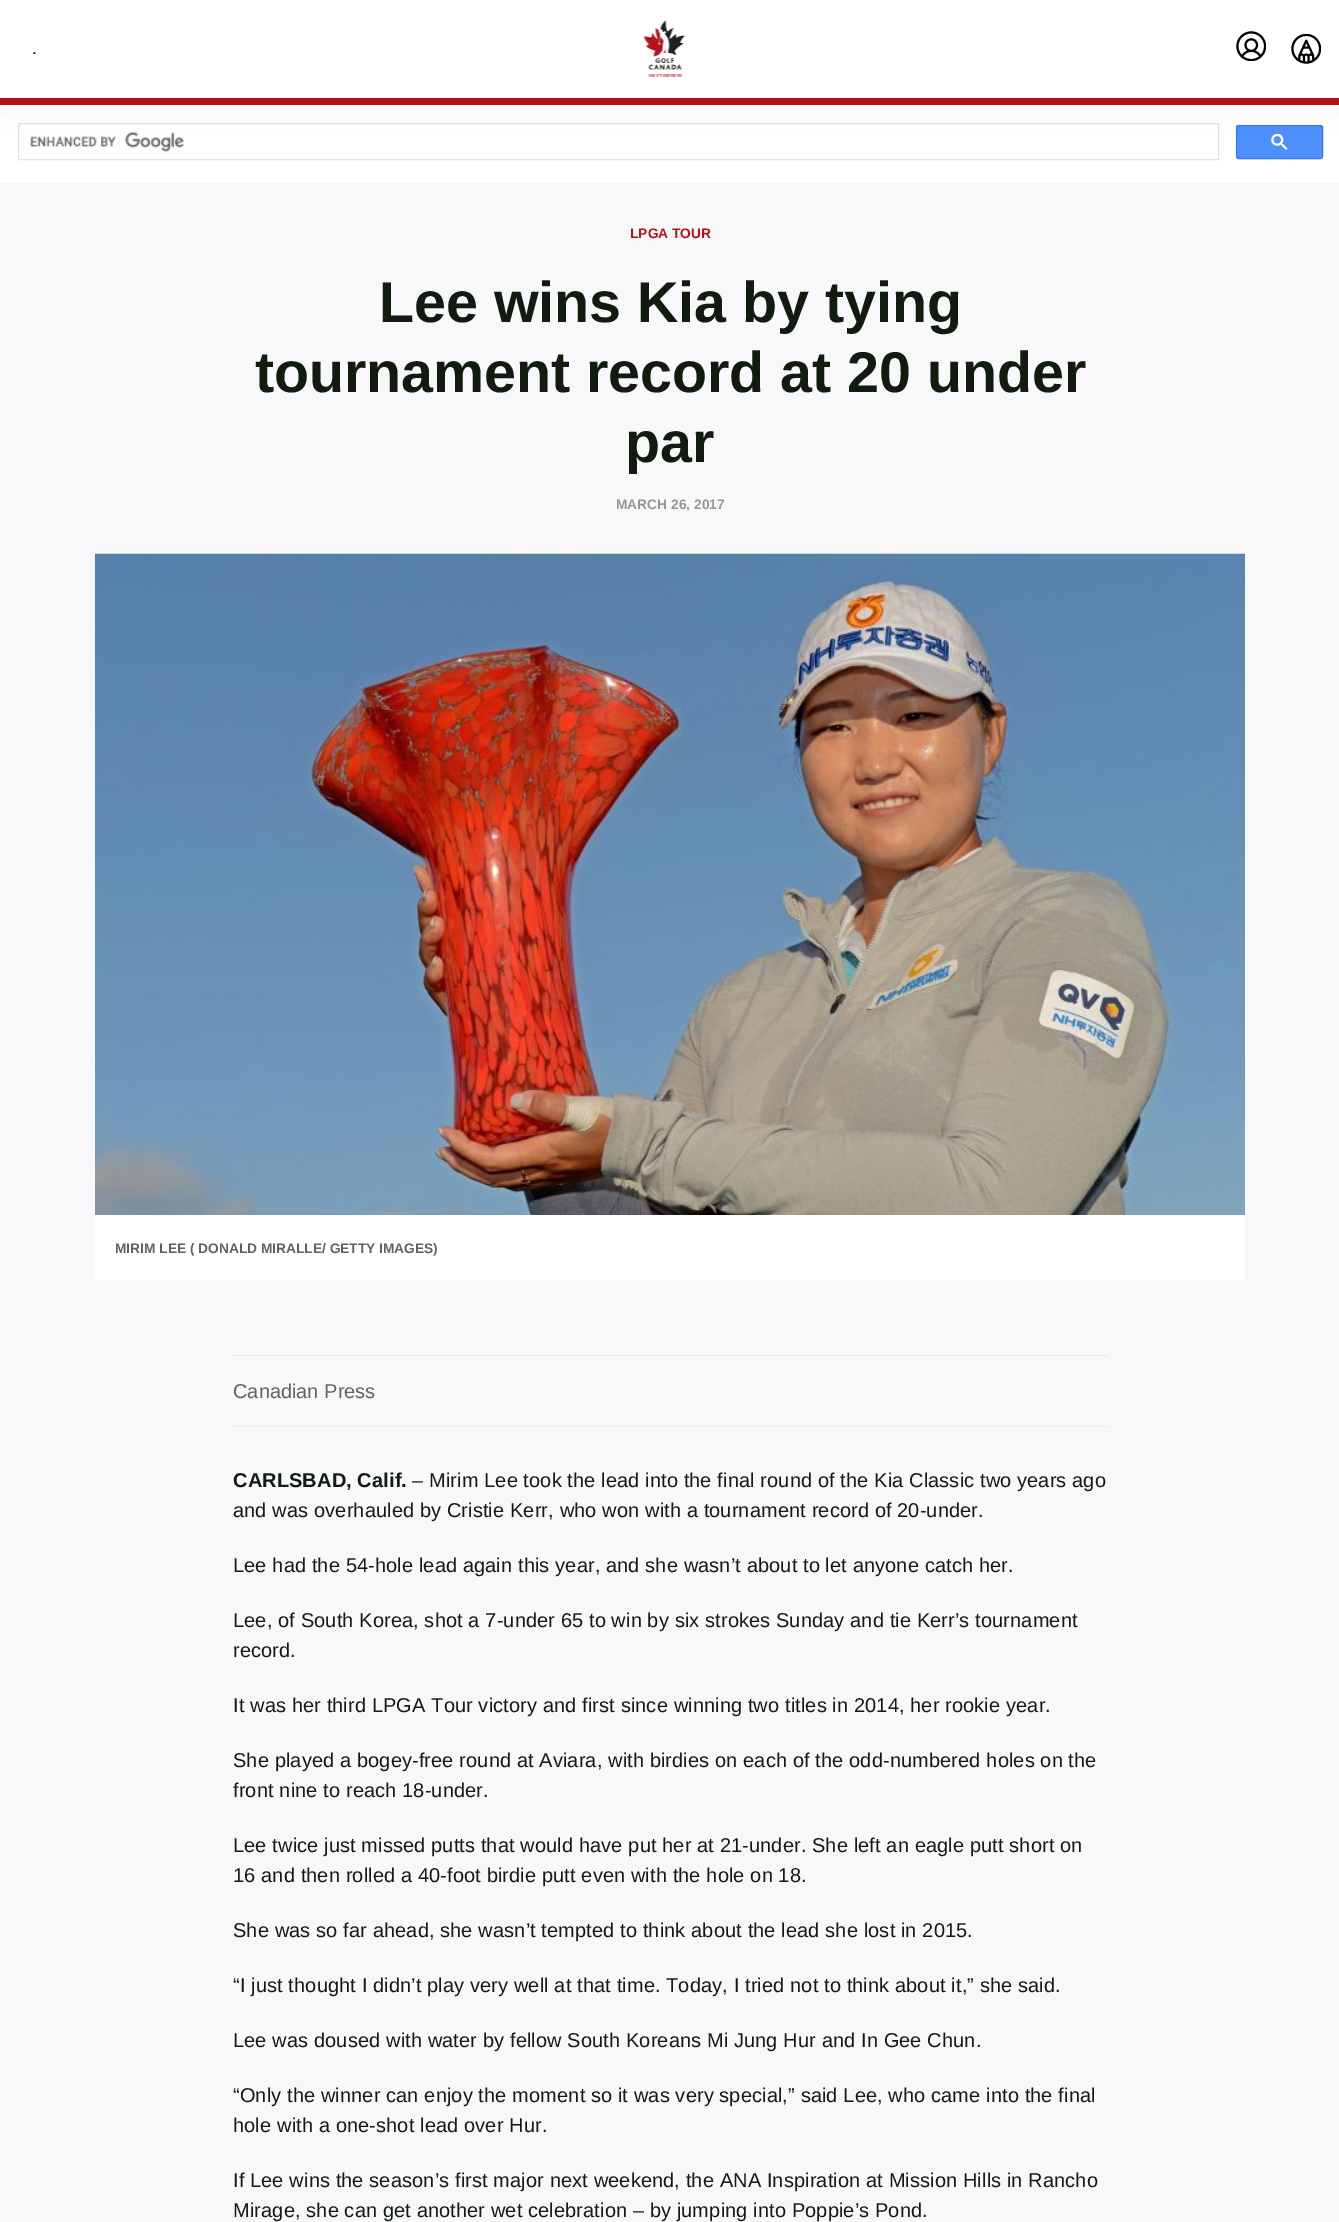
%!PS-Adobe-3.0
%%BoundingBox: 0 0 1339 2222
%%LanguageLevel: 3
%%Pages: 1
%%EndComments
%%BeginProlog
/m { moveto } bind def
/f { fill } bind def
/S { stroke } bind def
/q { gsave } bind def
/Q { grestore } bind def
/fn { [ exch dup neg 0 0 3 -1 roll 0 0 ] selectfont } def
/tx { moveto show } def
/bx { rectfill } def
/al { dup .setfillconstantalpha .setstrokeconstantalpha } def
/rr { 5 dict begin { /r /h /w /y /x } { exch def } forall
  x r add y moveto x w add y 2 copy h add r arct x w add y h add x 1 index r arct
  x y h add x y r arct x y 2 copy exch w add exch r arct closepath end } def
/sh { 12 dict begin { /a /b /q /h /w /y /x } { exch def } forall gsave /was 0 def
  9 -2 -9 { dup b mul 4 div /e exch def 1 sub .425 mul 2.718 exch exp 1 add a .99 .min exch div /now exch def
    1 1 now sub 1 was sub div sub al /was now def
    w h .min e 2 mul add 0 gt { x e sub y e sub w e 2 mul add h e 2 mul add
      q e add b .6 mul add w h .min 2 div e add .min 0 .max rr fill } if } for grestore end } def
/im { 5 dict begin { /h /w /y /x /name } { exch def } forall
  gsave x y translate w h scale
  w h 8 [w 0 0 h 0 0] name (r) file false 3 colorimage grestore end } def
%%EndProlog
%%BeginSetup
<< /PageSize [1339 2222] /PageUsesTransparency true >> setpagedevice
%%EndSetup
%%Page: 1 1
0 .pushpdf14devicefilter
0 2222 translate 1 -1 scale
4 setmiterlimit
0.973 0.973 0.984 setrgbcolor
0 0 1339 2222 bx
1 setgray
0 105 1339 78 bx
0.71 0.071 0.106 setrgbcolor
0 98 1339 7 bx
0.875 0.882 0.898 setrgbcolor
18.5 123.5 1200 36 rectstroke
(image3.raw) 30 132 154 20 im
0.302 0.565 0.996 setrgbcolor
1236.5 125.5 86 33 2 rr q f Q
0.188 0.475 0.929 setrgbcolor
S
(image4.raw) 1271 134 17 16 im
0 setgray
0 5 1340 98 0 19 0.05 sh
1 setgray
0 0 1339 98 bx
/LiberationSans-Regular 17 fn
0 setgray
(.) 32 54 tx
(image0.raw) 643 20 42 58 im
(image1.raw) 1236 31 30 30 im
(image2.raw) 1291 34 30 30 im
/LiberationSans-Bold 13.75 fn
0.71 0.071 0.106 setrgbcolor
(LPGA TOUR) 630 238 tx
/LiberationSans-Bold 57.5 fn
0.071 0.106 0.063 setrgbcolor
379 322 m -0.1 0 (Lee wins Kia by tying) ashow
255 392 m -0.1 0 (tournament record at 20 under) ashow
625 462 m -0.1 0 (par) ashow
/LiberationSans-Bold 13.75 fn
0.588 setgray
(MARCH 26, 2017) 616 509 tx
(image5.raw) 95 553 1150 662 im
1 setgray
95 1215 1150 65 bx
0.384 setgray
(MIRIM LEE \( DONALD MIRALLE/ GETTY IMAGES\)) 115 1253 tx
0.918 setgray
233 1355 875 1 bx
233 1426 875 1 bx
/LiberationSans-Regular 20 fn
0.384 setgray
(Canadian Press) 233 1398 tx
/LiberationSans-Bold 20 fn
0.071 0.106 0.063 setrgbcolor
233 1487 m 0.12 0 (CARLSBAD, Calif.) ashow
/LiberationSans-Regular 20 fn
412 1487 m 0.12 0 (– Mirim Lee took the lead into the final round of the Kia Classic two years ago) ashow
233 1517 m 0.12 0 (and was overhauled by Cristie Kerr, who won with a tournament record of 20-under.) ashow
233 1572 m 0.12 0 (Lee had the 54-hole lead again this year, and she wasn’t about to let anyone catch her.) ashow
233 1627 m 0.12 0 (Lee, of South Korea, shot a 7-under 65 to win by six strokes Sunday and tie Kerr’s tournament) ashow
233 1657 m 0.12 0 (record.) ashow
233 1712 m 0.12 0 (It was her third LPGA Tour victory and first since winning two titles in 2014, her rookie year.) ashow
233 1767 m 0.12 0 (She played a bogey-free round at Aviara, with birdies on each of the odd-numbered holes on the) ashow
233 1797 m 0.12 0 (front nine to reach 18-under.) ashow
233 1852 m 0.12 0 (Lee twice just missed putts that would have put her at 21-under. She left an eagle putt short on) ashow
233 1882 m 0.12 0 (16 and then rolled a 40-foot birdie putt even with the hole on 18.) ashow
233 1937 m 0.12 0 (She was so far ahead, she wasn’t tempted to think about the lead she lost in 2015.) ashow
233 1992 m 0.12 0 (“I just thought I didn’t play very well at that time. Today, I tried not to think about it,” she said.) ashow
233 2047 m 0.12 0 (Lee was doused with water by fellow South Koreans Mi Jung Hur and In Gee Chun.) ashow
233 2102 m 0.12 0 (“Only the winner can enjoy the moment so it was very special,” said Lee, who came into the final) ashow
233 2132 m 0.12 0 (hole with a one-shot lead over Hur.) ashow
233 2187 m 0.12 0 (If Lee wins the season’s first major next weekend, the ANA Inspiration at Mission Hills in Rancho) ashow
233 2217 m 0.12 0 (Mirage, she can get another wet celebration – by jumping into Poppie’s Pond.) ashow
.poppdf14devicefilter showpage
%%EOF
